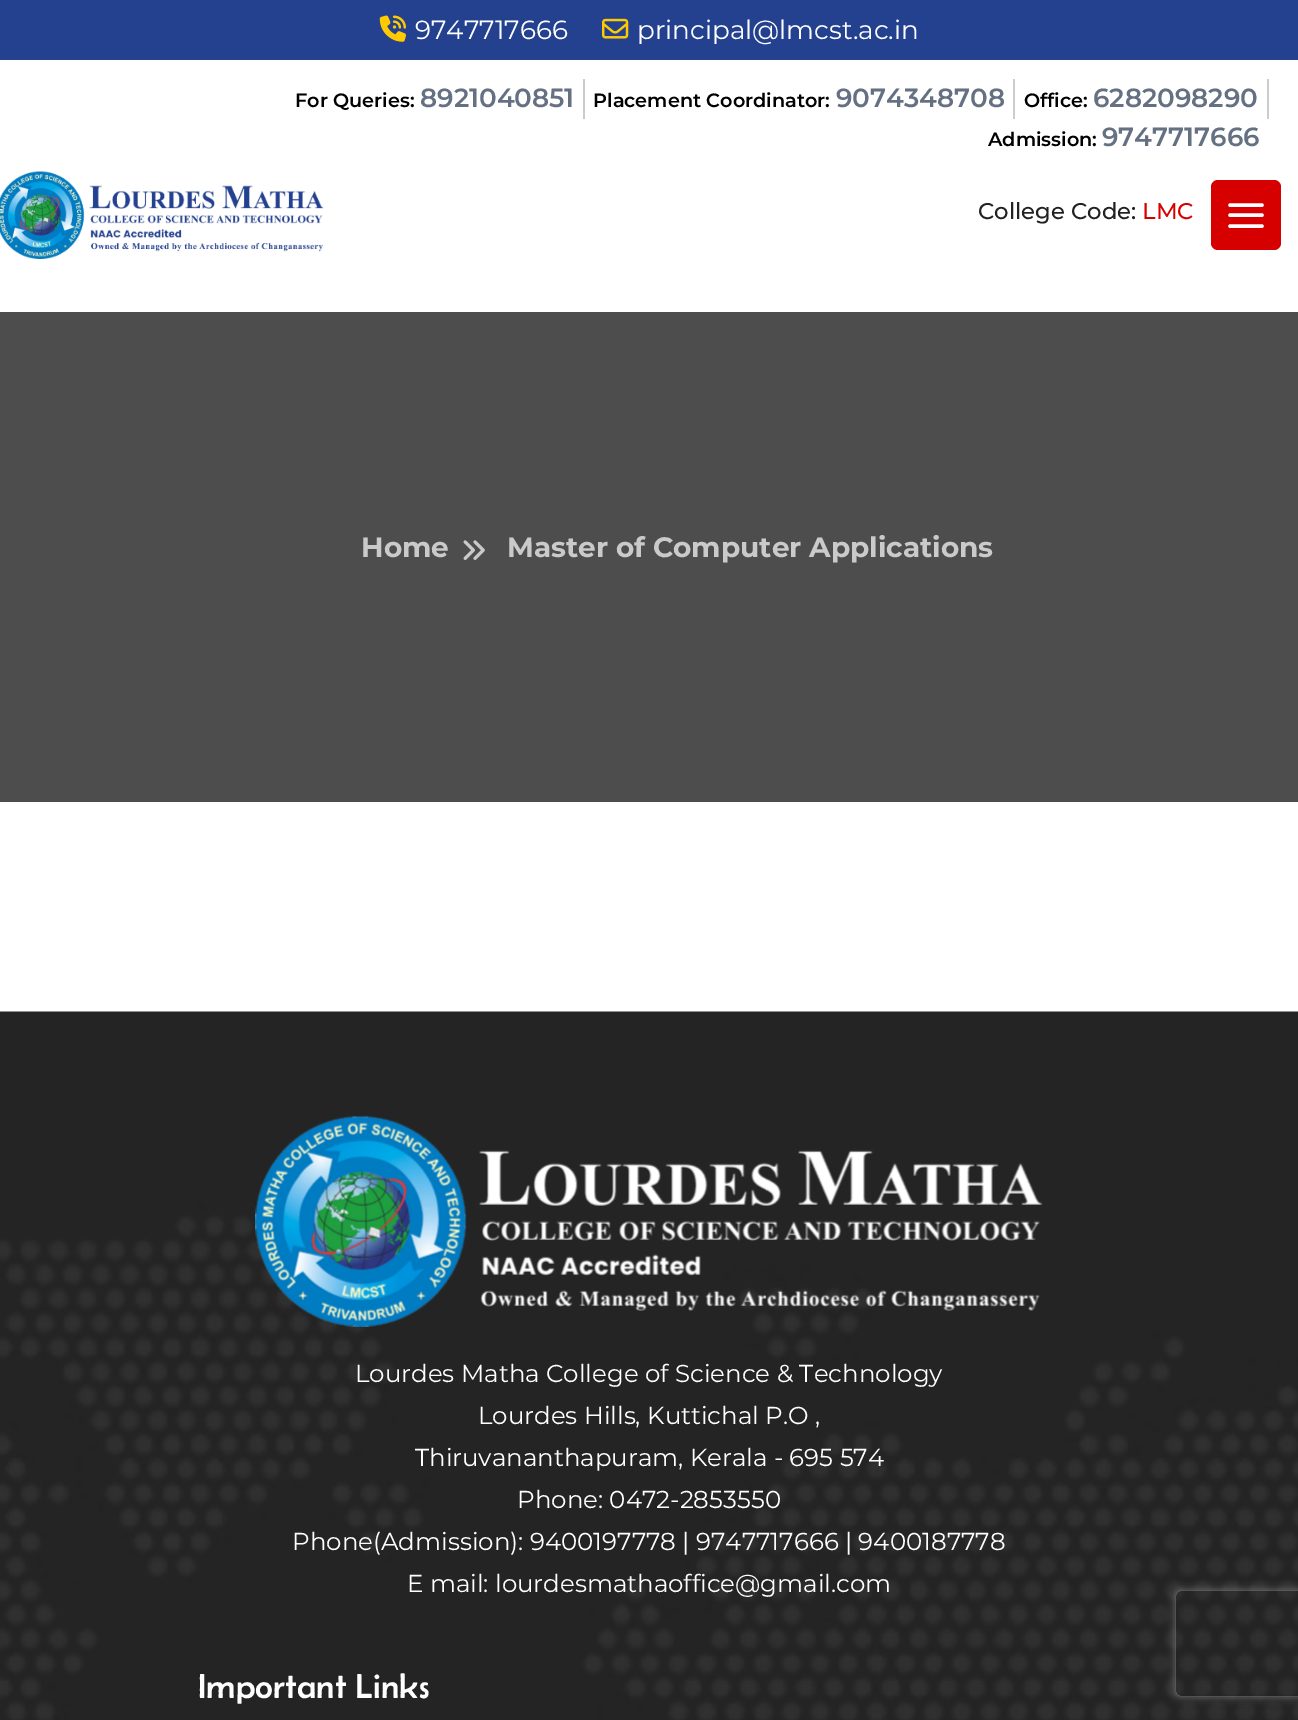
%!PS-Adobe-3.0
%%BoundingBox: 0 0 1298 1720
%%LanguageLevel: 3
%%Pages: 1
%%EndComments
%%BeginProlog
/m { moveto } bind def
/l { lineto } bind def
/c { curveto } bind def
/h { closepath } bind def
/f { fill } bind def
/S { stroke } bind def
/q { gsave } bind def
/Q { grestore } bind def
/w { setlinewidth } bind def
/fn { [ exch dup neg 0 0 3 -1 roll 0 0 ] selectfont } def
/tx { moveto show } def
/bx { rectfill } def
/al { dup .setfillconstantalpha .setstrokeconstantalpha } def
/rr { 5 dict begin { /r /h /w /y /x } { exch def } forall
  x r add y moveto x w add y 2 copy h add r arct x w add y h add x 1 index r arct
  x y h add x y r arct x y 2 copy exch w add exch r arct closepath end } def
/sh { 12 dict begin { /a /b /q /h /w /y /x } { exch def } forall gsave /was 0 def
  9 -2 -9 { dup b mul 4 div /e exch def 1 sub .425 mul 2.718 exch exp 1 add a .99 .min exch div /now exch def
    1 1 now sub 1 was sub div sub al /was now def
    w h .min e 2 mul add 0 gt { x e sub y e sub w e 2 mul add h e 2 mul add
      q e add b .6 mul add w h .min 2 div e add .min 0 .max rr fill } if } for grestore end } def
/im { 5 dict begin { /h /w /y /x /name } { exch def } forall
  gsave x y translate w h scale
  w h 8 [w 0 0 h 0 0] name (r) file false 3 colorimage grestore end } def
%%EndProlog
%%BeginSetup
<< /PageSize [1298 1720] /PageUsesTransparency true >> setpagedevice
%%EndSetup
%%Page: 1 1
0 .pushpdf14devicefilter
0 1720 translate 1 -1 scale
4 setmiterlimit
1 setgray
0 0 1298 1720 bx
0.141 0.255 0.565 setrgbcolor
0 0 1298 60 bx
(image0.raw) 379 15 27 27 im
/Montserrat-Regular 26.25 fn
1 setgray
(9747717666) 415 39 tx
(image1.raw) 602 18 27 21 im
(principal@lmcst.ac.in) 637 39 tx
0.8 setgray
583 79 2 40 bx
/Montserrat-SemiBold 19.25 fn
0 setgray
(For Queries:) 295 107 tx
/Montserrat-SemiBold 26.25 fn
0.396 0.443 0.51 setrgbcolor
(8921040851) 420 107 tx
0.8 setgray
1013 79 2 40 bx
/Montserrat-SemiBold 19.25 fn
0 setgray
(Placement Coordinator:) 593 107 tx
/Montserrat-SemiBold 26.25 fn
0.396 0.443 0.51 setrgbcolor
(9074348708) 836 107 tx
0.8 setgray
1267 79 2 40 bx
/Montserrat-SemiBold 19.25 fn
0 setgray
(Office:) 1024 107 tx
/Montserrat-SemiBold 26.25 fn
0.396 0.443 0.51 setrgbcolor
(6282098290) 1093 107 tx
/Montserrat-SemiBold 19.25 fn
0 setgray
(Admission:) 988 146 tx
/Montserrat-SemiBold 26.25 fn
0.396 0.443 0.51 setrgbcolor
(9747717666) 1102 146 tx
(image2.raw) 0 171 324 88 im
/Montserrat-Medium 22.75 fn
0.133 setgray
(College Code:) 978 219 tx
0.839 0 0 setrgbcolor
(LMC) 1142 219 tx
1211 180 70 70 7 rr f
1 setgray
3.5 w
1 setlinecap
1 setlinejoin
1230 215 m 1262 215 l 1230 205 m 1262 205 l 1230 226 m 1262 226 l S
0.302 setgray
0 312 1298 490 bx
/Montserrat-Bold 28 fn
0.792 setgray
(Home) 361 557 tx
(image3.raw) 463 540 22 20 im
(Master of Computer Applications) 507 557 tx
(image4.raw) 0 1011 1298 709 im
(image5.raw) 255 1115 788 212 im
/Montserrat-Regular 24.5 fn
1 setgray
(Lourdes Matha College of Science & Technology) 355 1382 tx
(Lourdes Hills, Kuttichal P.O ,) 478 1424 tx
(Thiruvananthapuram, Kerala - 695 574) 415 1466 tx
(Phone: 0472-2853550) 517 1508 tx
(Phone\(Admission\): 9400197778 | 9747717666 | 9400187778) 292 1550 tx
(E mail: lourdesmathaoffice@gmail.com) 407 1592 tx
/Belanosima-Regular 35 fn
(Important Links) 198 1698 tx
q
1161 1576 m 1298 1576 l 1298 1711 l 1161 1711 l h 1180 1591 m 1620 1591 l 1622 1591 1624 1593 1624 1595 c 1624 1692 l 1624 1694 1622 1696 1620 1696 c 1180 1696 l 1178 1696 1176 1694 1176 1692 c 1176 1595 l 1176 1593 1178 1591 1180 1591 c h eoclip newpath
0.502 setgray
1176 1591 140 105 4 4.5 1 sh
Q
.poppdf14devicefilter showpage
%%EOF
